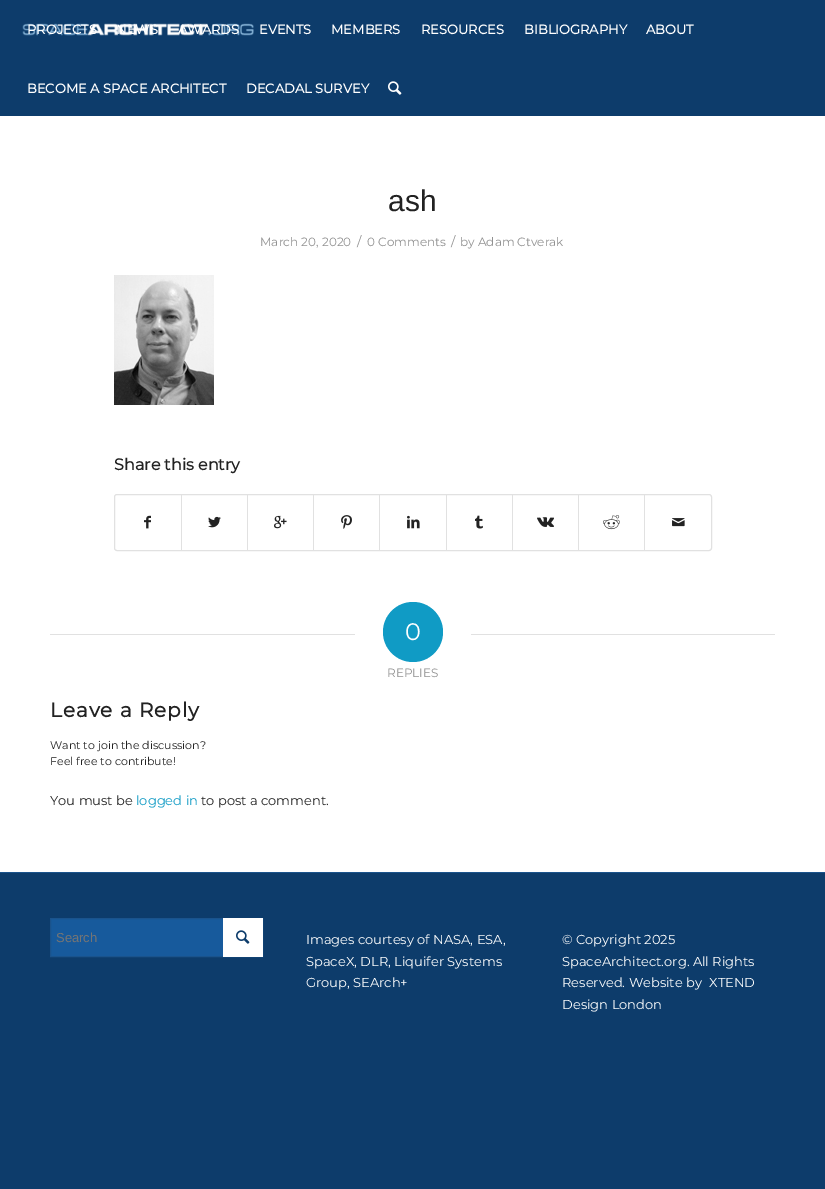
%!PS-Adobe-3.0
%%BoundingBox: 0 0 825 1189
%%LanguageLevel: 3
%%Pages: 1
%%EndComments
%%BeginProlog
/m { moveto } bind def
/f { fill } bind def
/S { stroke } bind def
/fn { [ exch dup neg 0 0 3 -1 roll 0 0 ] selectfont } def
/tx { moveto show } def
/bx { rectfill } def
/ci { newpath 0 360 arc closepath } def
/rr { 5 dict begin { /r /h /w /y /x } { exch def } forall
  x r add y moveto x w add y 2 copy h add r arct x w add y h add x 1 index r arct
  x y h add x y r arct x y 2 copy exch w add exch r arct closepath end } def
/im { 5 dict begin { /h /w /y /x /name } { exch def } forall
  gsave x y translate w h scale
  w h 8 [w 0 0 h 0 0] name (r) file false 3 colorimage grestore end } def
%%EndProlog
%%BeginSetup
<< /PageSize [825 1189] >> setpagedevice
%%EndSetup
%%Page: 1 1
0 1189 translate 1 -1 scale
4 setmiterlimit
0.051 0.235 0.42 setrgbcolor
0 0 825 1189 bx
(image0.raw) 22 23 232 13 im
/Montserrat-Bold 13 fn
1 setgray
(PROJECTS) 27 34 tx
(NEWS) 116 34 tx
(AWARDS) 178 34 tx
(EVENTS) 259 34 tx
(MEMBERS) 331 34 tx
(RESOURCES) 421 34 tx
(BIBLIOGRAPHY) 524 34 tx
(ABOUT) 646 34 tx
(BECOME A SPACE ARCHITECT) 27 93 tx
(DECADAL SURVEY) 246 93 tx
(image1.raw) 388 81 14 14 im
0 116 825 756 bx
/LiberationSans-Regular 30 fn
0.133 setgray
(ash) 388 211 tx
/Montserrat-Thin 12 fn
0.569 setgray
(March 20, 2020) 260 246 tx
/Montserrat-Thin 13 fn
(/) 357 246 tx
/Montserrat-Thin 12 fn
(0 Comments) 367 246 tx
/Montserrat-Thin 13 fn
(/) 451 246 tx
/Montserrat-Thin 12 fn
(by Adam Ctverak) 460 246 tx
(image2.raw) 114 275 100 130 im
/Montserrat-Bold 16 fn
0.133 setgray
(Share this entry) 114 470 tx
0.882 setgray
114.5 494.5 597 56 2.5 rr S
(image3.raw) 144 515 7 14 im
181 495 1 55 bx
(image4.raw) 208 516 13 12 im
247 495 1 55 bx
(image5.raw) 274 515 13 14 im
313 495 1 55 bx
(image6.raw) 341 515 11 14 im
379 495 1 55 bx
(image7.raw) 407 515 13 14 im
446 495 1 55 bx
(image8.raw) 475 515 8 14 im
512 495 1 55 bx
(image9.raw) 537 517 17 10 im
578 495 1 55 bx
(image10.raw) 603 515 17 15 im
644 495 1 55 bx
(image11.raw) 672 518 13 9 im
50 634 305 1 bx
0.063 0.608 0.773 setrgbcolor
413 632 30 ci f
/Montserrat-Thin 24 fn
1 setgray
(0) 405 640 tx
0.882 setgray
471 634 304 1 bx
/Montserrat-Thin 12 fn
0.569 setgray
(REPLIES) 387 677 tx
/Montserrat-Bold 20 fn
0.133 setgray
50 717 m 1 0 (Leave a Reply) ashow
/Montserrat-Thin 11 fn
(Want to join the discussion?) 50 749 tx
(Feel free to contribute!) 50 765 tx
/Montserrat-Thin 13 fn
(You must be) 50 805 tx
0.063 0.608 0.773 setrgbcolor
(logged in) 136 805 tx
0.133 setgray
(to post a comment.) 201 805 tx
0.102 0.325 0.549 setrgbcolor
0 872 825 1 bx
0.09 0.353 0.612 setrgbcolor
51 919 172 37 bx
0.102 0.325 0.549 setrgbcolor
50.5 918.5 212 38 rectstroke
/LiberationSans-Regular 13 fn
0.459 setgray
(Search) 56 942 tx
1 setgray
223 918 40 39 bx
(image12.raw) 236 930 14 14 im
/Montserrat-Thin 13 fn
(Images courtesy of NASA, ESA,) 306 944 tx
(SpaceX, DLR, Liquifer Systems) 306 966 tx
(Group, SEArch+) 306 987 tx
(© Copyright 2025) 562 944 tx
(SpaceArchitect.org. All Rights) 562 966 tx
(Reserved. Website by) 562 987 tx
(XTEND) 709 987 tx
(Design London) 562 1009 tx
showpage
%%EOF
